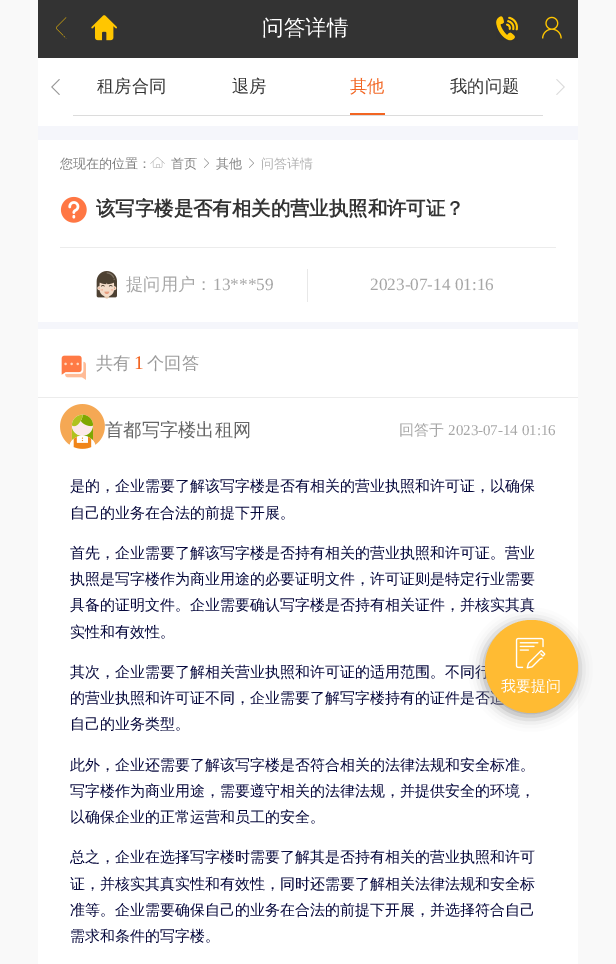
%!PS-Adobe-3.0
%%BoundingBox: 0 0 616 964
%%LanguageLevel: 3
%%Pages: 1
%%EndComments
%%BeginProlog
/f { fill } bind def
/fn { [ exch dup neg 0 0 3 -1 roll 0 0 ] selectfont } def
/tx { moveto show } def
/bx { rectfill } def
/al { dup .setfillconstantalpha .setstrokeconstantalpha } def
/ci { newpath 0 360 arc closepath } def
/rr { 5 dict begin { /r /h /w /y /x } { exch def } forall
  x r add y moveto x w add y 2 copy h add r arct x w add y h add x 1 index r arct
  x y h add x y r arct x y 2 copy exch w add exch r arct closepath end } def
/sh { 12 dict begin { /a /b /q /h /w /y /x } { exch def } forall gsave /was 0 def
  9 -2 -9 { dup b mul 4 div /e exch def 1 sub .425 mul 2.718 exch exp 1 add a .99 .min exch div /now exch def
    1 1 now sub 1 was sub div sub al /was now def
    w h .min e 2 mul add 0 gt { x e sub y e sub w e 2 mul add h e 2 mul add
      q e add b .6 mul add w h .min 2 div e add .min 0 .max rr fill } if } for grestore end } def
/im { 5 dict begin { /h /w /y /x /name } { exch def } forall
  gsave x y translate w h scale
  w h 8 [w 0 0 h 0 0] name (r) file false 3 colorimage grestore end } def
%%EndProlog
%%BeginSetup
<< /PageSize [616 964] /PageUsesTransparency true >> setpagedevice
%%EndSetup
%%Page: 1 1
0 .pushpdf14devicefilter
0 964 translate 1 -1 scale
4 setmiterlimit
0.976 setgray
0 0 616 964 bx
0.2 setgray
38 0 540 58 bx
(image0.raw) 56 17 11 22 im
(image1.raw) 91 15 26 26 im
/WenQuanYiZenHei-Medium 21.5 fn
1 setgray
(问答详情) 262 35 tx
(image2.raw) 496 16 22 25 im
(image3.raw) 542 16 20 23 im
38 58 540 68 bx
0.863 setgray
73 115 470 1 bx
/WenQuanYiZenHei-Medium 17.25 fn
0.2 setgray
(租房合同) 97 92 tx
(退房) 232 92 tx
0.949 0.396 0.133 setrgbcolor
350 113 35 2 bx
(其他) 350 92 tx
0.2 setgray
(我的问题) 450 92 tx
(image4.raw) 51 79 9 16 im
(image5.raw) 556 79 9 16 im
0.961 0.965 0.984 setrgbcolor
38 126 540 14 bx
1 setgray
38 140 540 824 bx
/WenQuanYiZenHei-Medium 13 fn
0.502 setgray
(您现在的位置：) 60 168 tx
(image6.raw) 150 157 15 11 im
(首页) 171 168 tx
(image7.raw) 204 158 5 10 im
(其他) 216 168 tx
(image7.raw) 249 158 5 10 im
0.702 setgray
(问答详情) 261 168 tx
(image8.raw) 60 196 27 27 im
/WenQuanYiZenHei-Bold 19.4 fn
0.2 setgray
(该写字楼是否有相关的营业执照和许可证？) 96 215 tx
0.925 setgray
60 247 496 1 bx
0.91 setgray
307 269 1 33 bx
(image9.raw) 96 271 21 28 im
/WenQuanYiZenHei-Medium 17.25 fn
0.651 setgray
(提问用户：) 126 290 tx
/LiberationSerif-Regular 17.25 fn
(13***59) 213 290 tx
(2023-07-14 01:16) 370 290 tx
0.961 0.965 0.984 setrgbcolor
38 322 540 7 bx
0.925 setgray
38 397 540 1 bx
(image10.raw) 61 355 25 25 im
/WenQuanYiZenHei-Medium 17.25 fn
0.6 setgray
(共有) 96 369 tx
/LiberationSerif-Regular 19.4 fn
0.949 0.396 0.133 setrgbcolor
(1) 134 369 tx
/WenQuanYiZenHei-Medium 17.25 fn
0.6 setgray
(个回答) 147 369 tx
/WenQuanYiZenHei-Medium 18.25 fn
0.4 setgray
(首都写字楼出租网) 105 436 tx
(image11.raw) 60 404 45 45 im
/WenQuanYiZenHei-Medium 15 fn
0.651 setgray
(回答于) 399 435 tx
/LiberationSerif-Regular 15 fn
(2023-07-14 01:16) 448 435 tx
/WenQuanYiZenHei-Medium 15 fn
0.02 0.027 0.231 setrgbcolor
(是的，企业需要了解该写字楼是否有相关的营业执照和许可证，以确保) 70 491 tx
(自己的业务在合法的前提下开展。) 70 518 tx
(首先，企业需要了解该写字楼是否持有相关的营业执照和许可证。营业) 70 558 tx
(执照是写字楼作为商业用途的必要证明文件，许可证则是特定行业需要) 70 584 tx
(具备的证明文件。企业需要确认写字楼是否持有相关证件，并核实其真) 70 610 tx
(实性和有效性。) 70 637 tx
(其次，企业需要了解相关营业执照和许可证的适用范围。不同行) 70 677 tx
(的营业执照和许可证不同，企业需要了解写字楼持有的证件是否适) 70 703 tx
(自己的业务类型。) 70 729 tx
(此外，企业还需要了解该写字楼是否符合相关的法律法规和安全标准。) 70 770 tx
(写字楼作为商业用途，需要遵守相关的法律法规，并提供安全的环境，) 70 796 tx
(以确保企业的正常运营和员工的安全。) 70 822 tx
(总之，企业在选择写字楼时需要了解其是否持有相关的营业执照和许可) 70 862 tx
(证，并核实其真实性和有效性，同时还需要了解相关法律法规和安全标) 70 889 tx
(准等。企业需要确保自己的业务在合法的前提下开展，并选择符合自己) 70 915 tx
(需求和条件的写字楼。) 70 941 tx
0.6 setgray
484 623 93 93 46.5 7 1 sh
1 0.733 0.2 setrgbcolor
531.5 666.5 46.5 ci f
(image12.raw) 515 637 31 32 im
1 setgray
(我要提问) 501 691 tx
.poppdf14devicefilter showpage
%%EOF
